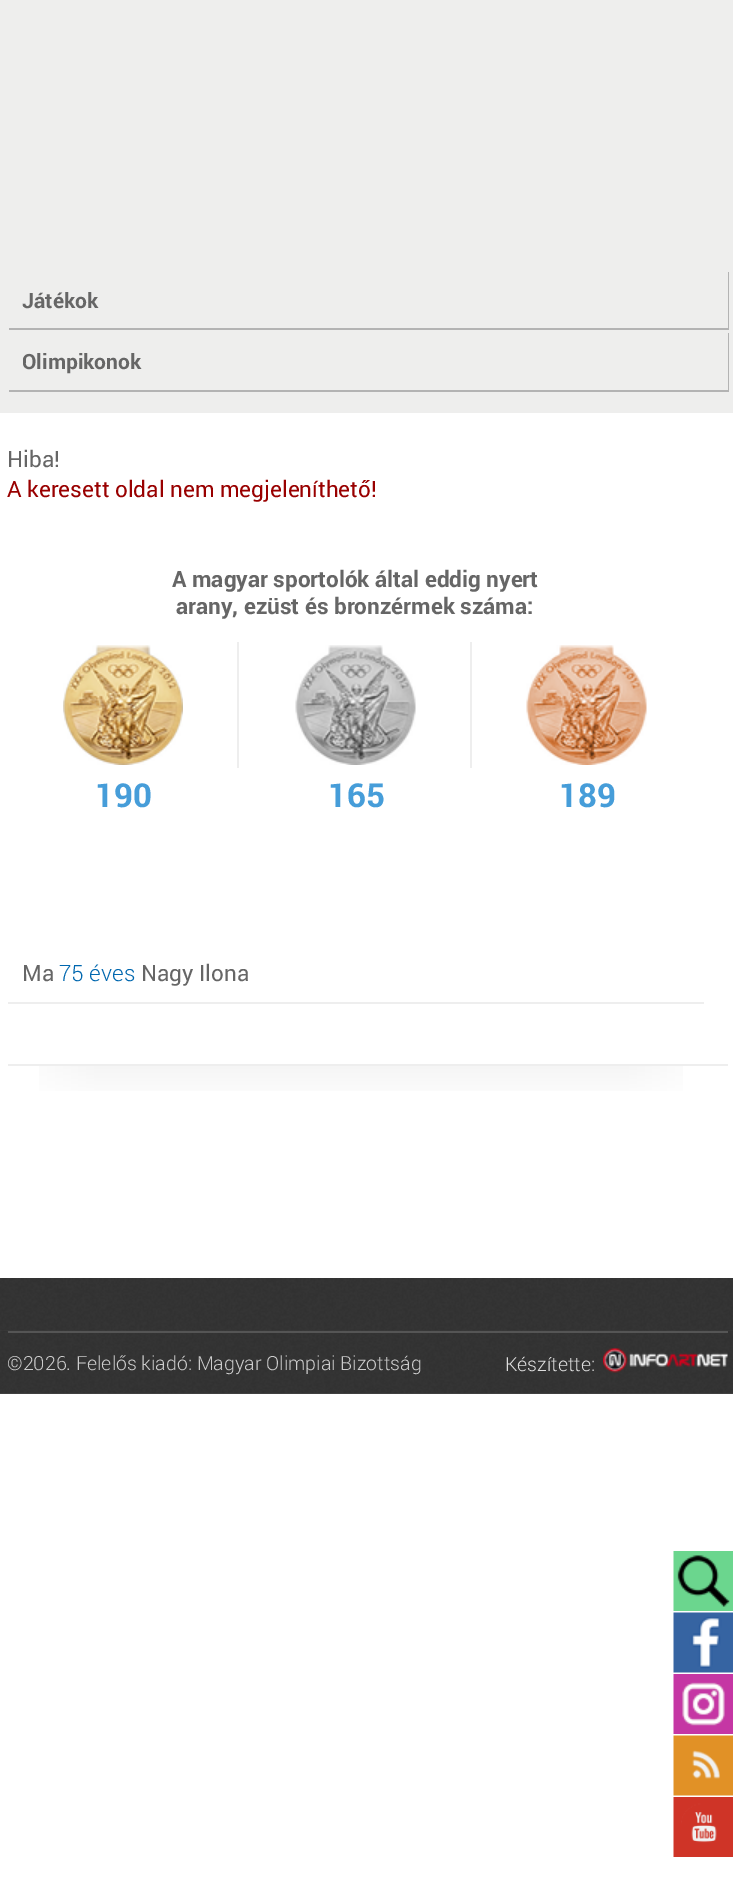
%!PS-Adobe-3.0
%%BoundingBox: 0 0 733 1904
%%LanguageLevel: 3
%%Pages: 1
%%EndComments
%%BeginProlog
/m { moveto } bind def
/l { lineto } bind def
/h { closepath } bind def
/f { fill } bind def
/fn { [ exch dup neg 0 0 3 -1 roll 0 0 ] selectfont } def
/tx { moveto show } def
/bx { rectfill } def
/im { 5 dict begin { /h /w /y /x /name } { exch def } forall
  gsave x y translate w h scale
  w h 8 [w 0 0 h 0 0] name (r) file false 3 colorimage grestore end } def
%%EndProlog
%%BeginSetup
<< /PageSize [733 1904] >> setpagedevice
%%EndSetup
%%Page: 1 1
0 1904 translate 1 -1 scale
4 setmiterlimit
1 setgray
0 0 733 1904 bx
0.933 0.933 0.929 setrgbcolor
0 0 733 413 bx
0.702 setgray
9 328 m 9 330 l 729 330 l 729 272 l 728 272 l 728 328 l h f
/Roboto-Bold 21 fn
0.4 setgray
(Játékok) 22 308 tx
0.702 setgray
9 390 m 9 392 l 729 392 l 729 333 l 728 333 l 728 390 l h f
0.4 setgray
(Olimpikonok) 22 369 tx
/Roboto-Regular 22.5 fn
(Hiba!) 7 467 tx
0.6 0 0 setrgbcolor
(A keresett oldal nem megjeleníthető!) 7 497 tx
/Roboto-Bold 22.5 fn
0.4 setgray
(A magyar sportolók által eddig nyert) 172 587 tx
(arany, ezüst és bronzérmek száma:) 176 614 tx
0.933 setgray
237 642 2 126 bx
(image0.raw) 63 645 120 120 im
470 642 2 126 bx
(image1.raw) 295 645 121 120 im
(image2.raw) 526 645 121 120 im
/Roboto-Bold 33 fn
0.275 0.616 0.851 setrgbcolor
(190) 95 807 tx
(165) 328 807 tx
(189) 559 807 tx
0.933 setgray
8 1002 696 2 bx
/Roboto-Regular 22.5 fn
0.4 setgray
(Ma) 22 981 tx
/Roboto-Light 22.5 fn
0 0.404 0.686 setrgbcolor
(75 éves) 59 981 tx
/Roboto-Regular 22.5 fn
0.4 setgray
(Nagy Ilona) 141 981 tx
(image3.raw) 39 1066 644 25 im
0.933 setgray
8 1064 720 2 bx
(image4.raw) 0 1278 733 53 im
0.267 setgray
0 1393 733 1 bx
(image5.raw) 0 1330 733 64 im
0.333 setgray
8 1331 720 2 bx
/Roboto-Light 19.5 fn
0.8 setgray
(©2026. Felelős kiadó: Magyar Olimpiai Bizottság) 7 1370 tx
0.867 setgray
(Készítette:) 505 1371 tx
(image6.raw) 603 1348 125 25 im
(image7.raw) 673 1551 60 60 im
(image8.raw) 673 1612 60 61 im
(image9.raw) 673 1674 60 60 im
(image10.raw) 673 1735 60 61 im
(image11.raw) 673 1797 60 60 im
showpage
%%EOF
